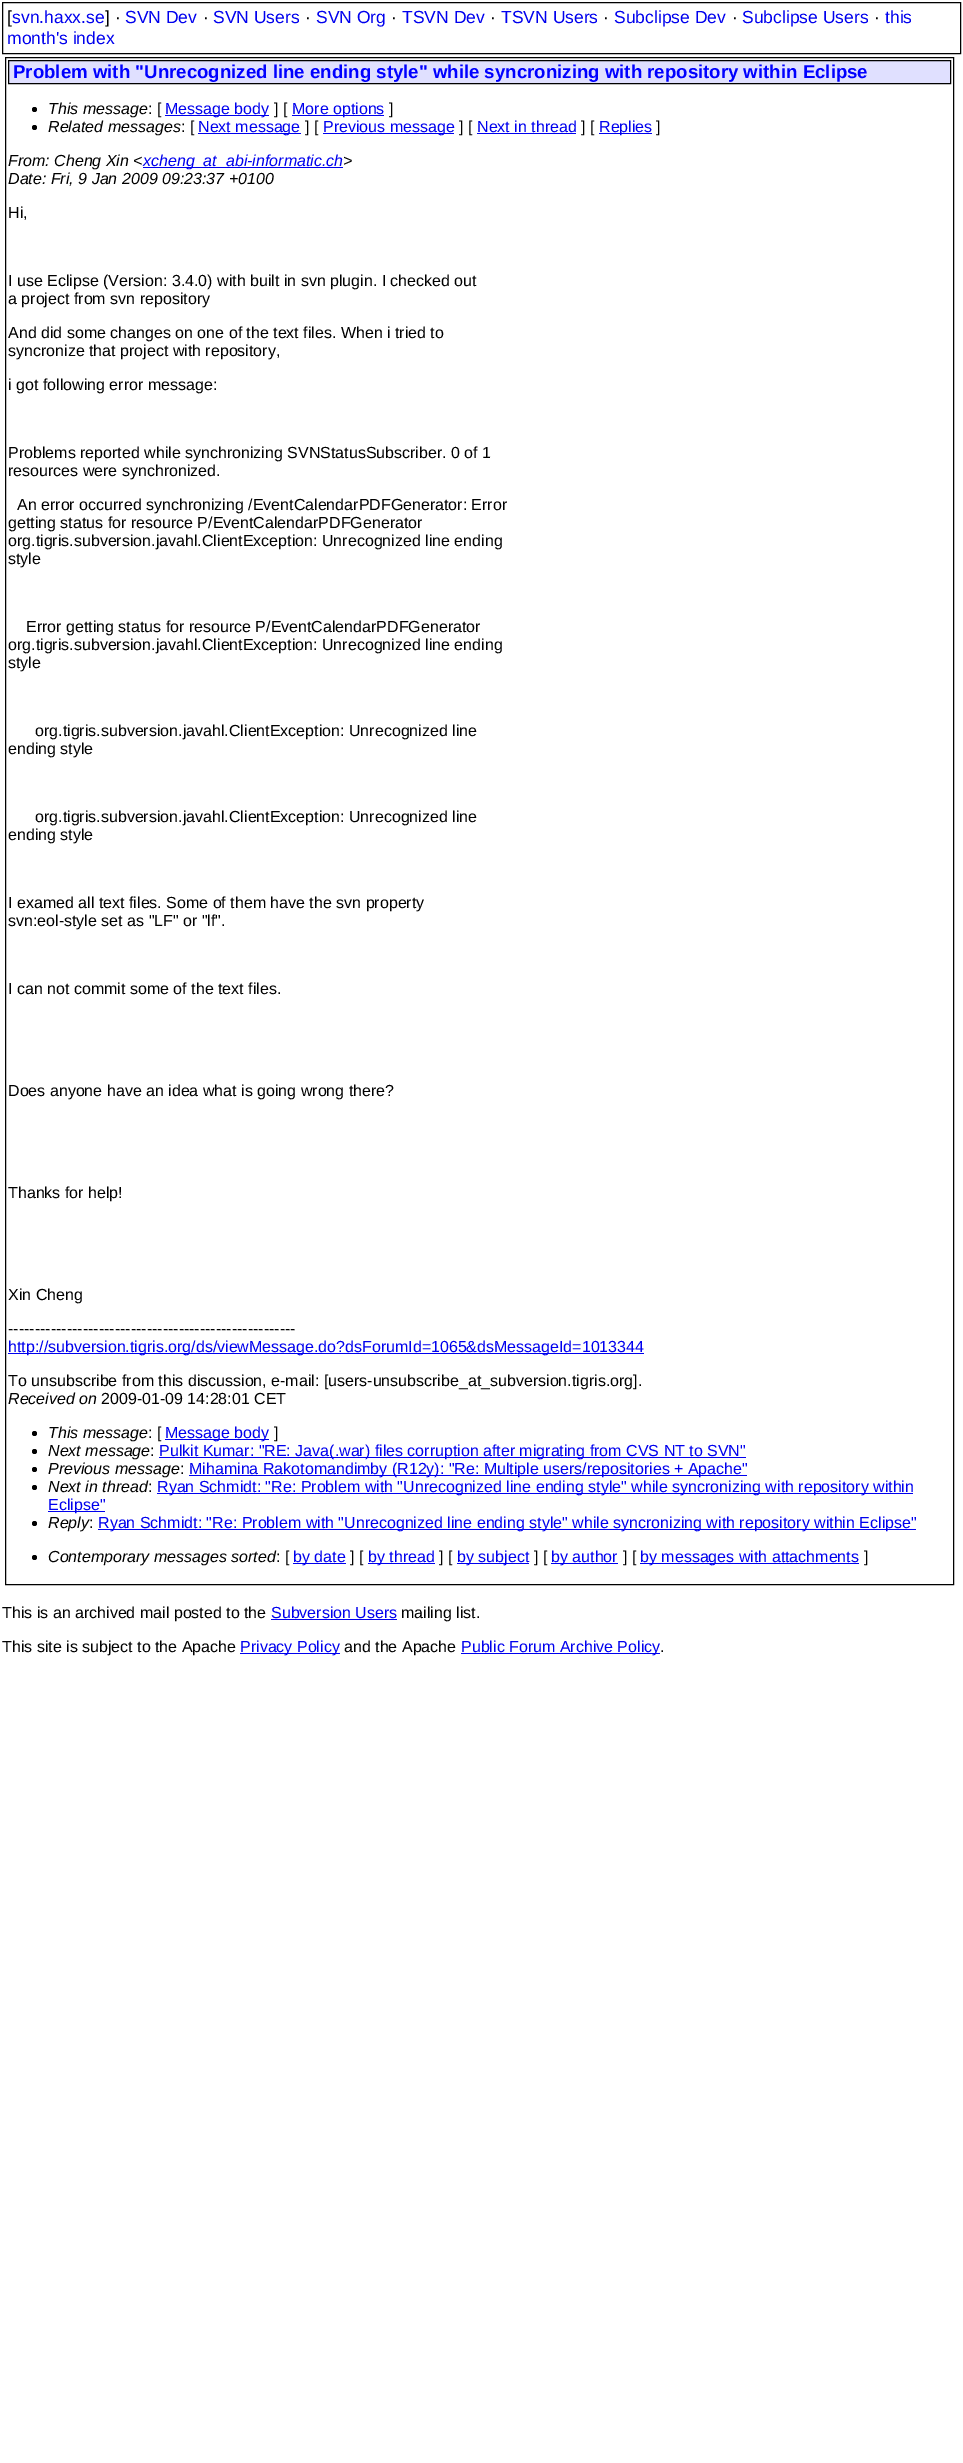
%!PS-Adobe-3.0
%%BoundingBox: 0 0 963 2463
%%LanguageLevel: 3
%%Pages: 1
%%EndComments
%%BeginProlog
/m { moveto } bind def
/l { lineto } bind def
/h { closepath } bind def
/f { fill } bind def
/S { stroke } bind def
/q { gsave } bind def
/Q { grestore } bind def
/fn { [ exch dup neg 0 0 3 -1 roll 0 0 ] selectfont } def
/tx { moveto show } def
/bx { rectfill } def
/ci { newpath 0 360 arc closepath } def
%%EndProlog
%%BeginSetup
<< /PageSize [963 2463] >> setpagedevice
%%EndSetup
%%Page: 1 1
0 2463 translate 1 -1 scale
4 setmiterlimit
1 setgray
0 0 963 2463 bx
0 setgray
2.5 2.5 958 51 rectstroke
/LiberationSans-Regular 17.5 fn
([) 7 23 tx
0 0 0.933 setrgbcolor
(svn.haxx.se) 12 23 tx
0 setgray
(] ·) 105 23 tx
0 0 0.933 setrgbcolor
(SVN Dev) 125 23 tx
0 setgray
(·) 203 23 tx
0 0 0.933 setrgbcolor
(SVN Users) 213 23 tx
0 setgray
(·) 305 23 tx
0 0 0.933 setrgbcolor
(SVN Org) 316 23 tx
0 setgray
(·) 391 23 tx
0 0 0.933 setrgbcolor
(TSVN Dev) 402 23 tx
0 setgray
(·) 490 23 tx
0 0 0.933 setrgbcolor
(TSVN Users) 501 23 tx
0 setgray
(·) 603 23 tx
0 0 0.933 setrgbcolor
(Subclipse Dev) 614 23 tx
0 setgray
(·) 732 23 tx
0 0 0.933 setrgbcolor
(Subclipse Users) 742 23 tx
0 setgray
(·) 874 23 tx
0 0 0.933 setrgbcolor
(this) 885 23 tx
(month's index) 7 44 tx
0 setgray
5.5 57.5 948 1527 rectstroke
0.878 0.878 1 setrgbcolor
8.5 60.5 m 950.5 60.5 l 950.5 83.5 l 8.5 83.5 l h q f Q
0 setgray
S
/LiberationSans-Bold 18.65 fn
0 0 1 setrgbcolor
(Problem with "Unrecognized line ending style" while syncronizing with repository within Eclipse) 13 78 tx
0 setgray
34.5 109.5 2.5 ci f
/LiberationSans-Italic 16 fn
(This message) 48 114 tx
/LiberationSans-Regular 16 fn
(: [) 148 114 tx
0 0 0.933 setrgbcolor
165 115 104 1 bx
(Message body) 165 114 tx
0 setgray
(] [) 274 114 tx
0 0 0.933 setrgbcolor
292 115 92 1 bx
(More options) 292 114 tx
0 setgray
(]) 389 114 tx
34.5 127.5 2.5 ci f
/LiberationSans-Italic 16 fn
(Related messages) 48 132 tx
/LiberationSans-Regular 16 fn
(: [) 181 132 tx
0 0 0.933 setrgbcolor
198 133 103 1 bx
(Next message) 198 132 tx
0 setgray
(] [) 305 132 tx
0 0 0.933 setrgbcolor
323 133 131 1 bx
(Previous message) 323 132 tx
0 setgray
(] [) 459 132 tx
0 0 0.933 setrgbcolor
(Next in thread) 477 132 tx
477 133 99 1 bx
0 setgray
(] [) 581 132 tx
0 0 0.933 setrgbcolor
599 133 53 1 bx
(Replies) 599 132 tx
0 setgray
(]) 656 132 tx
/LiberationSans-Italic 16 fn
(From: Cheng Xin <) 8 166 tx
0 0 0.933 setrgbcolor
143 167 200 1 bx
(xcheng_at_abi-informatic.ch) 143 166 tx
0 setgray
(>) 343 166 tx
(Date: Fri, 9 Jan 2009 09:23:37 +0100) 8 184 tx
/LiberationSans-Regular 16 fn
(Hi,) 8 218 tx
(I use Eclipse \(Version: 3.4.0\) with built in svn plugin. I checked out) 8 286 tx
(a project from svn repository) 8 304 tx
(And did some changes on one of the text files. When i tried to) 8 338 tx
(syncronize that project with repository,) 8 356 tx
(i got following error message:) 8 390 tx
(Problems reported while synchronizing SVNStatusSubscriber. 0 of 1) 8 458 tx
(resources were synchronized.) 8 476 tx
(An error occurred synchronizing /EventCalendarPDFGenerator: Error) 17 510 tx
(getting status for resource P/EventCalendarPDFGenerator) 8 528 tx
(org.tigris.subversion.javahl.ClientException: Unrecognized line ending) 8 546 tx
(style) 8 564 tx
(Error getting status for resource P/EventCalendarPDFGenerator) 26 632 tx
(org.tigris.subversion.javahl.ClientException: Unrecognized line ending) 8 650 tx
(style) 8 668 tx
(org.tigris.subversion.javahl.ClientException: Unrecognized line) 35 736 tx
(ending style) 8 754 tx
(org.tigris.subversion.javahl.ClientException: Unrecognized line) 35 822 tx
(ending style) 8 840 tx
(I examed all text files. Some of them have the svn property) 8 908 tx
(svn:eol-style set as "LF" or "lf".) 8 926 tx
(I can not commit some of the text files.) 8 994 tx
(Does anyone have an idea what is going wrong there?) 8 1096 tx
(Thanks for help!) 8 1198 tx
(Xin Cheng) 8 1300 tx
(------------------------------------------------------) 8 1334 tx
0 0 0.933 setrgbcolor
8 1353 636 1 bx
(http://subversion.tigris.org/ds/viewMessage.do?dsForumId=1065&dsMessageId=1013344) 8 1352 tx
0 setgray
(To unsubscribe from this discussion, e-mail: [users-unsubscribe_at_subversion.tigris.org].) 8 1386 tx
/LiberationSans-Italic 16 fn
(Received on) 8 1404 tx
/LiberationSans-Regular 16 fn
(2009-01-09 14:28:01 CET) 101 1404 tx
34.5 1433.5 2.5 ci f
/LiberationSans-Italic 16 fn
(This message) 48 1438 tx
/LiberationSans-Regular 16 fn
(: [) 148 1438 tx
0 0 0.933 setrgbcolor
165 1439 104 1 bx
(Message body) 165 1438 tx
0 setgray
(]) 274 1438 tx
34.5 1451.5 2.5 ci f
/LiberationSans-Italic 16 fn
(Next message) 48 1456 tx
/LiberationSans-Regular 16 fn
(:) 150 1456 tx
0 0 0.933 setrgbcolor
159 1457 587 1 bx
(Pulkit Kumar: "RE: Java\(.war\) files corruption after migrating from CVS NT to SVN") 159 1456 tx
0 setgray
34.5 1469.5 2.5 ci f
/LiberationSans-Italic 16 fn
(Previous message) 48 1474 tx
/LiberationSans-Regular 16 fn
(:) 180 1474 tx
0 0 0.933 setrgbcolor
189 1475 558 1 bx
(Mihamina Rakotomandimby \(R12y\): "Re: Multiple users/repositories + Apache") 189 1474 tx
0 setgray
34.5 1487.5 2.5 ci f
/LiberationSans-Italic 16 fn
(Next in thread) 48 1492 tx
/LiberationSans-Regular 16 fn
(:) 148 1492 tx
0 0 0.933 setrgbcolor
157 1493 756 1 bx
(Ryan Schmidt: "Re: Problem with "Unrecognized line ending style" while syncronizing with repository within) 157 1492 tx
48 1511 57 1 bx
(Eclipse") 48 1510 tx
0 setgray
34.5 1523.5 2.5 ci f
/LiberationSans-Italic 16 fn
(Reply) 48 1528 tx
/LiberationSans-Regular 16 fn
(:) 89 1528 tx
0 0 0.933 setrgbcolor
98 1529 818 1 bx
(Ryan Schmidt: "Re: Problem with "Unrecognized line ending style" while syncronizing with repository within Eclipse") 98 1528 tx
0 setgray
34.5 1557.5 2.5 ci f
/LiberationSans-Italic 16 fn
(Contemporary messages sorted) 48 1562 tx
/LiberationSans-Regular 16 fn
(: [) 276 1562 tx
0 0 0.933 setrgbcolor
293 1563 53 1 bx
(by date) 293 1562 tx
0 setgray
(] [) 350 1562 tx
0 0 0.933 setrgbcolor
368 1563 67 1 bx
(by thread) 368 1562 tx
0 setgray
(] [) 439 1562 tx
0 0 0.933 setrgbcolor
457 1563 72 1 bx
(by subject) 457 1562 tx
0 setgray
(] [) 534 1562 tx
0 0 0.933 setrgbcolor
551 1563 67 1 bx
(by author) 551 1562 tx
0 setgray
(] [) 623 1562 tx
0 0 0.933 setrgbcolor
640 1563 219 1 bx
(by messages with attachments) 640 1562 tx
0 setgray
(]) 864 1562 tx
(This is an archived mail posted to the) 2 1618 tx
0 0 0.933 setrgbcolor
(Subversion Users) 271 1618 tx
271 1619 126 1 bx
0 setgray
(mailing list.) 401 1618 tx
(This site is subject to the Apache) 2 1652 tx
0 0 0.933 setrgbcolor
240 1653 100 1 bx
(Privacy Policy) 240 1652 tx
0 setgray
(and the Apache) 344 1652 tx
0 0 0.933 setrgbcolor
461 1653 199 1 bx
(Public Forum Archive Policy) 461 1652 tx
0 setgray
(.) 660 1652 tx
showpage
%%EOF
